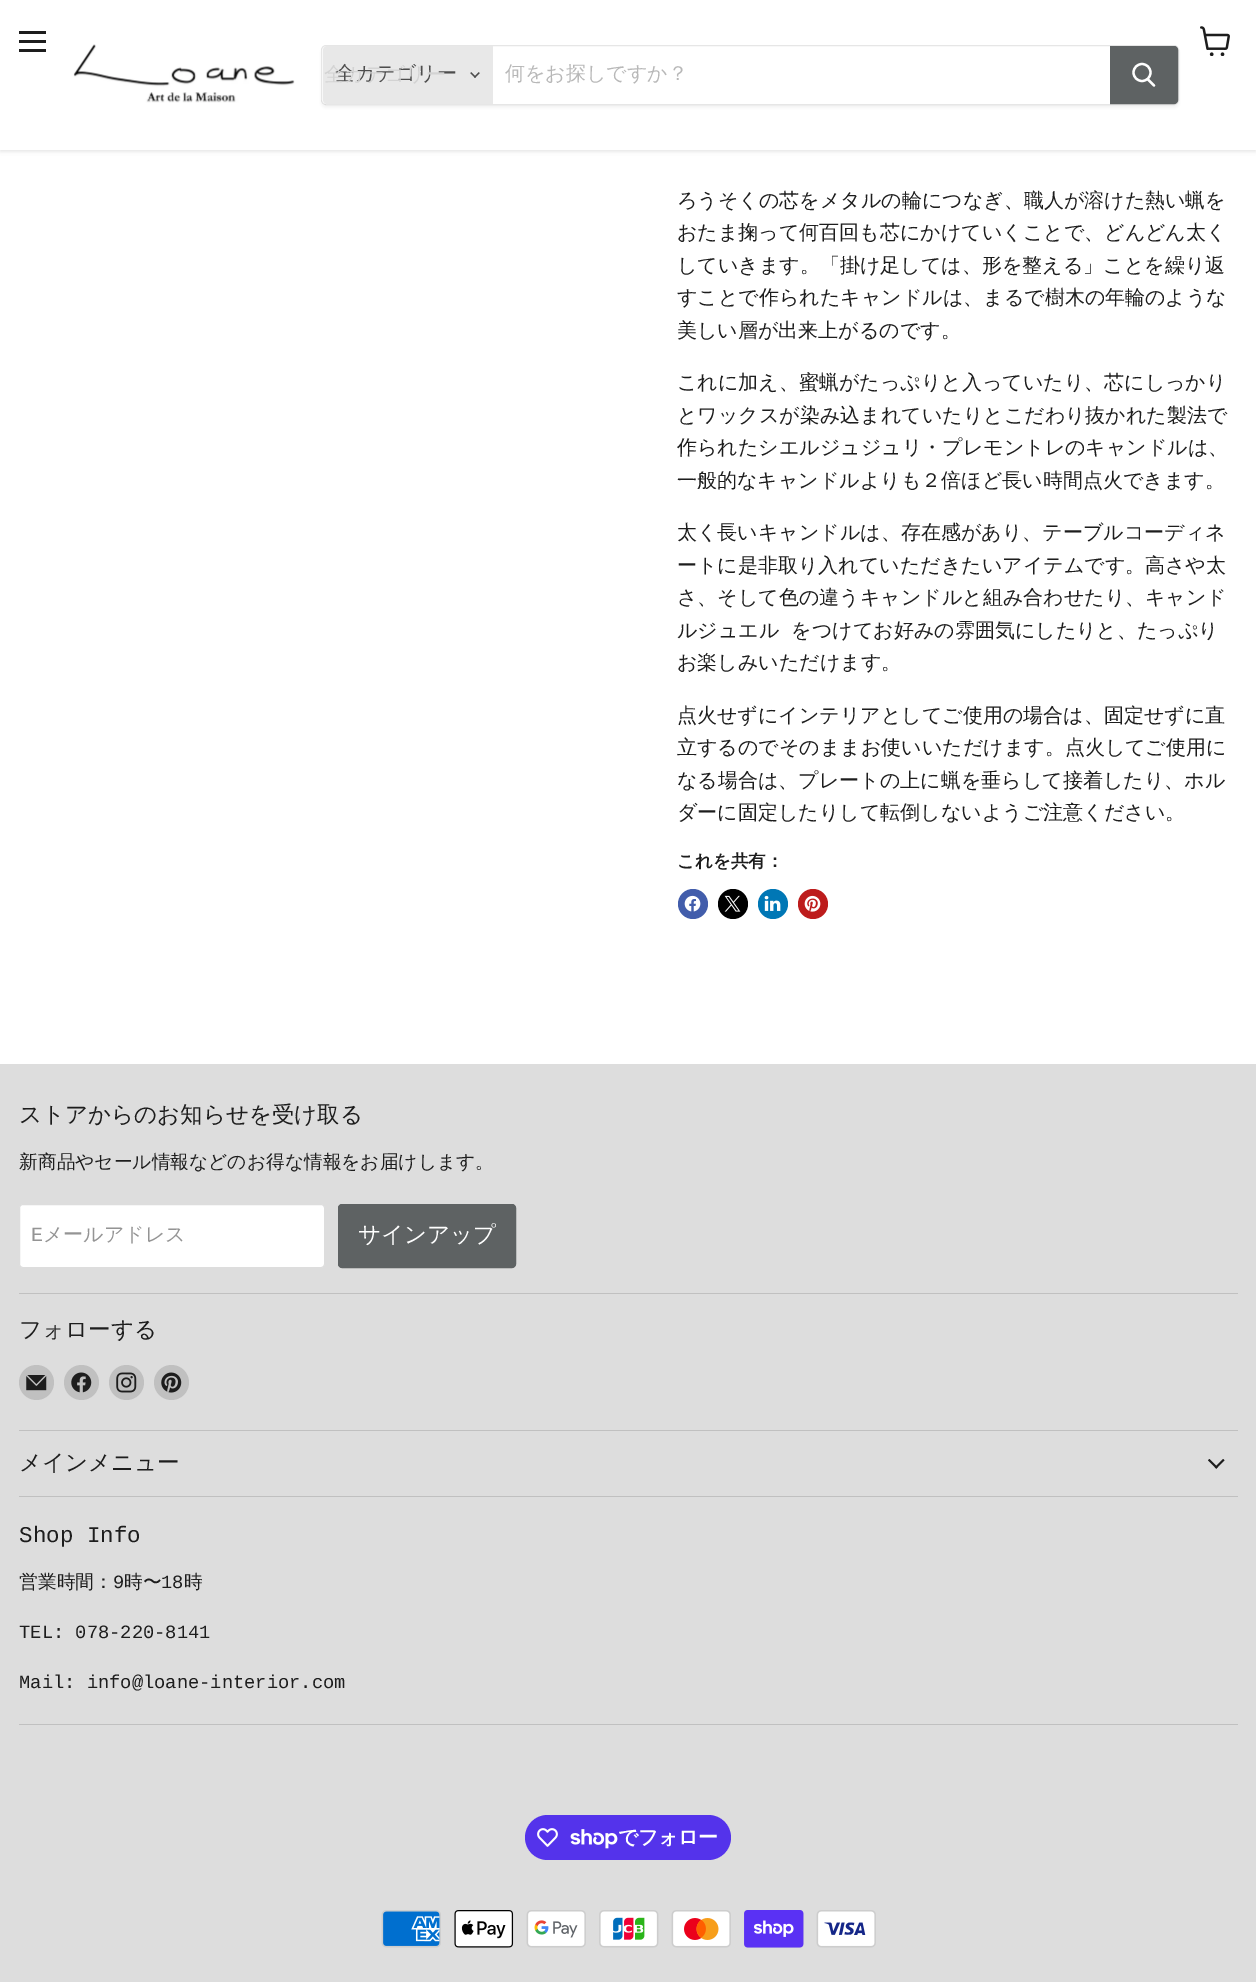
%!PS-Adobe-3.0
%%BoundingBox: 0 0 1256 1982
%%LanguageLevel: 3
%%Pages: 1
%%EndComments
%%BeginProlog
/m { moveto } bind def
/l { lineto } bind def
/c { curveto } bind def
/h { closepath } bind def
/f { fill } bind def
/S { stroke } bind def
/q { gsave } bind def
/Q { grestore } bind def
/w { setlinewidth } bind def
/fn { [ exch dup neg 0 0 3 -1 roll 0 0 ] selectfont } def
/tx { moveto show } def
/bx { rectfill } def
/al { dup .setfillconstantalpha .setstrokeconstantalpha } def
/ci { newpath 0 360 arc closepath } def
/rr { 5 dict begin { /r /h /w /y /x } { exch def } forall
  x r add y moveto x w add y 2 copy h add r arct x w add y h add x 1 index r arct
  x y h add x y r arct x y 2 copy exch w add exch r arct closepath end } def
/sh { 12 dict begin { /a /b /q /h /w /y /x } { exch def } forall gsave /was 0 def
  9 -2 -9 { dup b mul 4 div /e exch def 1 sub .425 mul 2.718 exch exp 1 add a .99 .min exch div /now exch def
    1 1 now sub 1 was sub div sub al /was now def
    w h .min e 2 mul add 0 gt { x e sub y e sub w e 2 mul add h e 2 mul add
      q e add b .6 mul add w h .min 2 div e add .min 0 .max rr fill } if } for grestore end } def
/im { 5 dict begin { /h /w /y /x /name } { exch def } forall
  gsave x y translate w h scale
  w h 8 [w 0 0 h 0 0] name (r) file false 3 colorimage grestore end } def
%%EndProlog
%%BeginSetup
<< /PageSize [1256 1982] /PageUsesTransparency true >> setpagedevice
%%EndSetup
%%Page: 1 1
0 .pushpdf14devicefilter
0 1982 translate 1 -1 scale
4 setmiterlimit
1 setgray
0 0 1256 1982 bx
0.502 setgray
0 1 1256 150 0 2.5 0.25 sh
1 setgray
0 0 1256 150 bx
0.114 setgray
19 31 27 3 bx
19 40 27 3 bx
19 49 27 3 bx
(image0.raw) 1200 26 30 30 im
(image1.raw) 73 44 222 59 im
q
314 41 m 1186 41 l 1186 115 l 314 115 l h 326 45 m 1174 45 l 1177 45 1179 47 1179 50 c 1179 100 l 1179 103 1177 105 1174 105 c 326 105 l 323 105 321 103 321 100 c 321 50 l 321 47 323 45 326 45 c h eoclip newpath
0.502 setgray
321 48 858 60 5 2 0.11 sh
Q
0.2 al
0.502 setgray
321.5 45.5 857 59 4.5 rr S
1 al
0.91 setgray
327 46 m 493 46 l 493 104 l 327 104 l 325 104 323 102 323 100 c 323 50 l 323 48 325 46 327 46 c h f
/WenQuanYiZenHei-Medium 20 fn
0.302 setgray
(全カテゴリー) 335 80 tx
0.827 setgray
(全カテゴリー) 324 81 tx
(image2.raw) 470 72 10 6 im
0.722 setgray
(何をお探しですか？) 505 80 tx
0.369 0.384 0.388 setrgbcolor
1110.5 46.5 m 1174 46.5 l 1176 46.5 1177.5 48 1177.5 50 c 1177.5 100 l 1177.5 102 1176 103.5 1174 103.5 c 1110.5 103.5 l h q f Q
S
1 setgray
2.2 w
1 setlinecap
1154 85.5 m 1148 79.5 l S
0 setlinecap
1142 72.5 8.5 ci S
0.114 setgray
(ろうそくの芯をメタルの輪につなぎ、職人が溶けた熱い蝋を) 677 207 tx
(おたま掬って何百回も芯にかけていくことで、どんどん太く) 677 239 tx
(していきます。「掛け足しては、形を整える」ことを繰り返) 677 272 tx
(すことで作られたキャンドルは、まるで樹木の年輪のような) 677 304 tx
(美しい層が出来上がるのです。) 677 337 tx
(これに加え、蜜蝋がたっぷりと入っていたり、芯にしっかり) 677 389 tx
(とワックスが染み込まれていたりとこだわり抜かれた製法で) 677 422 tx
(作られたシエルジュジュリ・プレモントレのキャンドルは、) 677 454 tx
(一般的なキャンドルよりも２倍ほど長い時間点火できます。) 677 487 tx
(太く長いキャンドルは、存在感があり、テーブルコーディネ) 677 539 tx
(ートに是非取り入れていただきたいアイテムです。高さや太) 677 572 tx
(さ、そして色の違うキャンドルと組み合わせたり、キャンド) 677 604 tx
677 637 m 6 0 32 (ルジュエル をつけてお好みの雰囲気にしたりと、たっぷり) widthshow
(お楽しみいただけます。) 677 669 tx
(点火せずにインテリアとしてご使用の場合は、固定せずに直) 677 722 tx
(立するのでそのままお使いいただけます。点火してご使用に) 677 754 tx
(なる場合は、プレートの上に蝋を垂らして接着したり、ホル) 677 787 tx
(ダーに固定したりして転倒しないようご注意ください。) 677 819 tx
/WenQuanYiZenHei-Bold 17.5 fn
(これを共有：) 677 867 tx
0.259 0.365 0.671 setrgbcolor
693 904 15 ci f
(image3.raw) 684 895 17 17 im
0 setgray
733 904 15 ci f
(image4.raw) 724 895 17 17 im
0 0.467 0.71 setrgbcolor
773 904 15 ci f
(image5.raw) 764 895 17 16 im
0.741 0.11 0.11 setrgbcolor
813 904 15 ci f
(image6.raw) 804 895 17 17 im
0.867 setgray
0 1064 1256 918 bx
0.753 setgray
19 1293 1219 1 bx
/WenQuanYiZenHei-Medium 22.5 fn
0.114 setgray
(ストアからのお知らせを受け取る) 19 1122 tx
/WenQuanYiZenHei-Medium 18.75 fn
(新商品やセール情報などのお得な情報をお届けします。) 19 1168 tx
1 setgray
19.5 1204.5 305 63 3.5 rr q f Q
0.867 setgray
1 w
S
/LiberationMono-Regular 20 fn
0.58 setgray
(E) 31 1241 tx
/WenQuanYiZenHei-Medium 20 fn
(メールアドレス) 43 1241 tx
0.369 0.384 0.388 setrgbcolor
338.5 1204.5 177 63 3.5 rr q f Q
S
/WenQuanYiZenHei-Medium 22.5 fn
1 setgray
(サインアップ) 358 1242 tx
0.753 setgray
19 1430 1219 1 bx
0.114 setgray
(フォローする) 19 1337 tx
0.753 setgray
36.5 1382.5 17.5 ci f
(image7.raw) 26 1375 21 16 im
81.5 1382.5 17.5 ci f
(image8.raw) 71 1372 21 21 im
126.5 1382.5 17.5 ci f
(image9.raw) 116 1372 21 21 im
171.5 1382.5 17.5 ci f
(image10.raw) 161 1372 21 21 im
19 1496 1219 1 bx
0.114 setgray
(メインメニュー) 19 1470 tx
(image11.raw) 1208 1459 17 10 im
0.753 setgray
19 1724 1219 1 bx
/LiberationMono-Regular 22.5 fn
0.114 setgray
(Shop Info) 19 1542 tx
/WenQuanYiZenHei-Medium 18.75 fn
(営業時間：) 19 1588 tx
/LiberationMono-Regular 18.75 fn
(9) 113 1588 tx
/WenQuanYiZenHei-Medium 18.75 fn
(時〜) 124 1588 tx
/LiberationMono-Regular 18.75 fn
(18) 161 1588 tx
/WenQuanYiZenHei-Medium 18.75 fn
(時) 184 1588 tx
/LiberationMono-Regular 18.75 fn
(TEL: 078-220-8141) 19 1638 tx
(Mail: info@loane-interior.com) 19 1688 tx
0.329 0.2 0.922 setrgbcolor
525 1815 206 45 22.5 rr f
(image12.raw) 537 1828 21 19 im
(image13.raw) 570 1829 48 20 im
/WenQuanYiZenHei-Bold 20 fn
1 setgray
618 1844 m -0.5 0 (でフォロー) ashow
(image14.raw) 381 1910 60 38 im
(image15.raw) 454 1910 60 38 im
(image16.raw) 526 1910 60 38 im
(image17.raw) 599 1910 60 38 im
(image18.raw) 671 1910 60 38 im
(image19.raw) 744 1910 60 38 im
(image20.raw) 816 1910 60 38 im
.poppdf14devicefilter showpage
%%EOF
